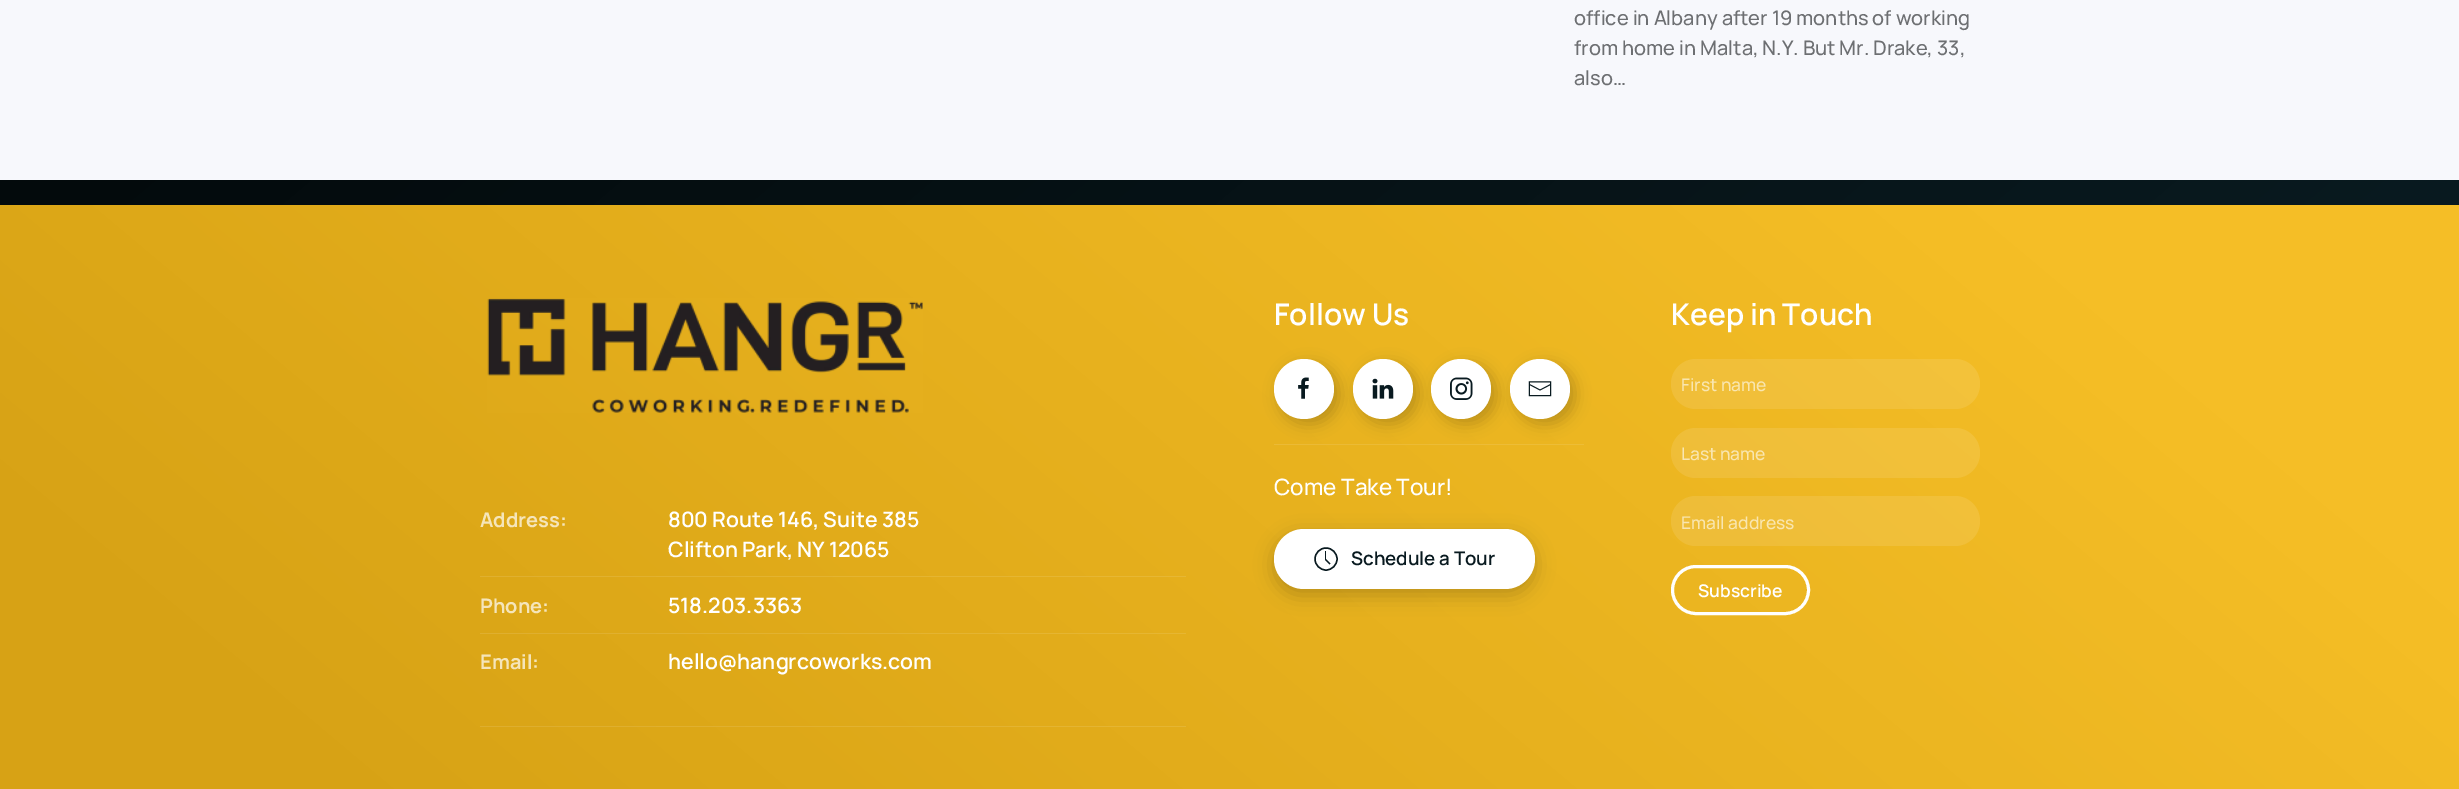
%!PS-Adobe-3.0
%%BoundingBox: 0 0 2459 789
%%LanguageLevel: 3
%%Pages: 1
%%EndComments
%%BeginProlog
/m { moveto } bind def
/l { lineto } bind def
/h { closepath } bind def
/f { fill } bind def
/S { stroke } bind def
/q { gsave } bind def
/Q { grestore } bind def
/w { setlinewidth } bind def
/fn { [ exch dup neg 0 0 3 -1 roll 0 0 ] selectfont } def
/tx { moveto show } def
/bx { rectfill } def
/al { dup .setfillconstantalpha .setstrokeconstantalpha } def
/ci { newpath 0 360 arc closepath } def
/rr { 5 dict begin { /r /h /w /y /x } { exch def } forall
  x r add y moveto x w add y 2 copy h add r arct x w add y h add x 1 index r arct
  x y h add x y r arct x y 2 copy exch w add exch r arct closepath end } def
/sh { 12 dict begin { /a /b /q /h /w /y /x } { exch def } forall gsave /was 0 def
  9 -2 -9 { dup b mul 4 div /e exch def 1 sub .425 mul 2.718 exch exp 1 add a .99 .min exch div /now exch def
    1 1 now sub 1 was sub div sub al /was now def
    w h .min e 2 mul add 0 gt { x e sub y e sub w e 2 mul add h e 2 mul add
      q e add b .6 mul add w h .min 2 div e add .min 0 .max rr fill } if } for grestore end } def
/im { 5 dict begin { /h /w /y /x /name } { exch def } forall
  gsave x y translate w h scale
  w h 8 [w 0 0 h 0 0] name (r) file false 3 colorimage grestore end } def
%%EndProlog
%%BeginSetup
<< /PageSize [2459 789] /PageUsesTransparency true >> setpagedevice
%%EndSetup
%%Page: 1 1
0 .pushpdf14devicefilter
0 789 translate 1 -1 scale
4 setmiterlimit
0.969 0.973 0.988 setrgbcolor
0 0 2459 789 bx
/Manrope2-ExtraLight 20 fn
0.427 0.435 0.447 setrgbcolor
(office in Albany after 19 months of working) 1574 25 tx
(from home in Malta, N.Y. But Mr. Drake, 33,) 1574 55 tx
(also…) 1574 85 tx
q 0 180 m 2459 180 l 2459 205 l 0 205 l h clip newpath
<< /ShadingType 2 /ColorSpace /DeviceRGB /Coords [1744 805 716 -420] /Extend [true true] /Function << /FunctionType 2 /Domain [0 1] /C0 [0.035 0.102 0.125] /C1 [0.012 0.039 0.047] /N 1 >> >> shfill Q
q 0 205 m 2459 205 l 2459 789 l 0 789 l h clip newpath
<< /ShadingType 2 /ColorSpace /DeviceRGB /Coords [572 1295 1888 -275] /Extend [true true] /Function << /FunctionType 3 /Domain [0 1] /Functions [<< /FunctionType 2 /Domain [0 1] /C0 [0.843 0.635 0.082] /C1 [0.843 0.635 0.082] /N 1 >> << /FunctionType 2 /Domain [0 1] /C0 [0.843 0.635 0.082] /C1 [0.961 0.745 0.149] /N 1 >> << /FunctionType 2 /Domain [0 1] /C0 [0.961 0.745 0.149] /C1 [0.961 0.745 0.149] /N 1 >>] /Bounds [0.1 0.85] /Encode [0 1 0 1 0 1] >> >> shfill Q
q 480 726 m 1186 726 l 1186 727 l 480 727 l h clip newpath
<< /ShadingType 2 /ColorSpace /DeviceRGB /Coords [572 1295 1888 -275] /Extend [true true] /Function << /FunctionType 3 /Domain [0 1] /Functions [<< /FunctionType 2 /Domain [0 1] /C0 [0.859 0.671 0.173] /C1 [0.859 0.671 0.173] /N 1 >> << /FunctionType 2 /Domain [0 1] /C0 [0.859 0.671 0.173] /C1 [0.965 0.773 0.235] /N 1 >> << /FunctionType 2 /Domain [0 1] /C0 [0.965 0.773 0.235] /C1 [0.965 0.773 0.235] /N 1 >>] /Bounds [0.1 0.85] /Encode [0 1 0 1 0 1] >> >> shfill Q
q 480 633 m 1186 633 l 1186 634 l 480 634 l h clip newpath
<< /ShadingType 2 /ColorSpace /DeviceRGB /Coords [572 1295 1888 -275] /Extend [true true] /Function << /FunctionType 3 /Domain [0 1] /Functions [<< /FunctionType 2 /Domain [0 1] /C0 [0.859 0.671 0.173] /C1 [0.859 0.671 0.173] /N 1 >> << /FunctionType 2 /Domain [0 1] /C0 [0.859 0.671 0.173] /C1 [0.965 0.773 0.235] /N 1 >> << /FunctionType 2 /Domain [0 1] /C0 [0.965 0.773 0.235] /C1 [0.965 0.773 0.235] /N 1 >>] /Bounds [0.1 0.85] /Encode [0 1 0 1 0 1] >> >> shfill Q
q 480 576 m 1186 576 l 1186 577 l 480 577 l h clip newpath
<< /ShadingType 2 /ColorSpace /DeviceRGB /Coords [572 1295 1888 -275] /Extend [true true] /Function << /FunctionType 3 /Domain [0 1] /Functions [<< /FunctionType 2 /Domain [0 1] /C0 [0.859 0.671 0.173] /C1 [0.859 0.671 0.173] /N 1 >> << /FunctionType 2 /Domain [0 1] /C0 [0.859 0.671 0.173] /C1 [0.965 0.773 0.235] /N 1 >> << /FunctionType 2 /Domain [0 1] /C0 [0.965 0.773 0.235] /C1 [0.965 0.773 0.235] /N 1 >>] /Bounds [0.1 0.85] /Encode [0 1 0 1 0 1] >> >> shfill Q
q 1274 444 m 1584 444 l 1584 445 l 1274 445 l h clip newpath
<< /ShadingType 2 /ColorSpace /DeviceRGB /Coords [572 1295 1888 -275] /Extend [true true] /Function << /FunctionType 3 /Domain [0 1] /Functions [<< /FunctionType 2 /Domain [0 1] /C0 [0.859 0.671 0.173] /C1 [0.859 0.671 0.173] /N 1 >> << /FunctionType 2 /Domain [0 1] /C0 [0.859 0.671 0.173] /C1 [0.965 0.773 0.235] /N 1 >> << /FunctionType 2 /Domain [0 1] /C0 [0.965 0.773 0.235] /C1 [0.965 0.773 0.235] /N 1 >>] /Bounds [0.1 0.85] /Encode [0 1 0 1 0 1] >> >> shfill Q
(image0.raw) 487 298 436 115 im
/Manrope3-ExtraLight 20 fn
0.961 0.898 0.729 setrgbcolor
(Address:) 480 527 tx
/Manrope-ExtraLight 21.25 fn
1 setgray
(800 Route 146, Suite 385) 668 527 tx
(Clifton Park, NY 12065) 668 557 tx
/Manrope3-ExtraLight 20 fn
0.961 0.898 0.729 setrgbcolor
(Phone:) 480 613 tx
/Manrope-ExtraLight 21.25 fn
1 setgray
(518.203.3363) 668 613 tx
/Manrope3-ExtraLight 20 fn
0.961 0.898 0.729 setrgbcolor
(Email:) 480 669 tx
/Manrope-ExtraLight 21.25 fn
1 setgray
(hello@hangrcoworks.com) 668 669 tx
/Manrope-ExtraLight 30 fn
(Follow Us) 1274 325 tx
0 setgray
1279 364 60 60 30 7.5 0.2 sh
1 setgray
1304 389 30 ci f
(image1.raw) 1298 377 11 22 im
0 setgray
1358 364 60 60 30 7.5 0.2 sh
1 setgray
1383 389 30 ci f
(image2.raw) 1372 378 22 21 im
0 setgray
1436 364 60 60 30 7.5 0.2 sh
1 setgray
1461 389 30 ci f
(image3.raw) 1450 377 23 23 im
0 setgray
1515 364 60 60 30 7.5 0.2 sh
1 setgray
1540 389 30 ci f
(image4.raw) 1528 381 24 16 im
/Manrope2-ExtraLight 22.5 fn
(Come Take Tour!) 1274 495 tx
0 setgray
1274 535 261 60 30 9.5 0.2 sh
1 setgray
1274 529 261 60 30 rr f
0.035 0.102 0.125 setrgbcolor
1.4 w
1326 559 11 ci S
1325 551 1 9 bx
1330 564 m 1325.5 559.5 l S
/Manrope-ExtraLight 18.75 fn
(Schedule a Tour) 1351 565 tx
/Manrope-ExtraLight 30 fn
1 setgray
(Keep in Touch) 1671 325 tx
0.1 al
1671 359 309 50 25 rr f
/Manrope2-ExtraLight 17.5 fn
1 al
0.976 0.902 0.69 setrgbcolor
(First name) 1681 391 tx
0.1 al
1 setgray
1671 428 309 50 25 rr f
1 al
0.976 0.902 0.69 setrgbcolor
(Last name) 1681 460 tx
0.1 al
1 setgray
1671 496 309 50 25 rr f
1 al
0.976 0.902 0.69 setrgbcolor
(Email address) 1681 529 tx
1 setgray
3 w
1672.5 566.5 136 47 23.5 rr S
/Manrope-ExtraLight 17.5 fn
(Subscribe) 1698 597 tx
.poppdf14devicefilter showpage
%%EOF
